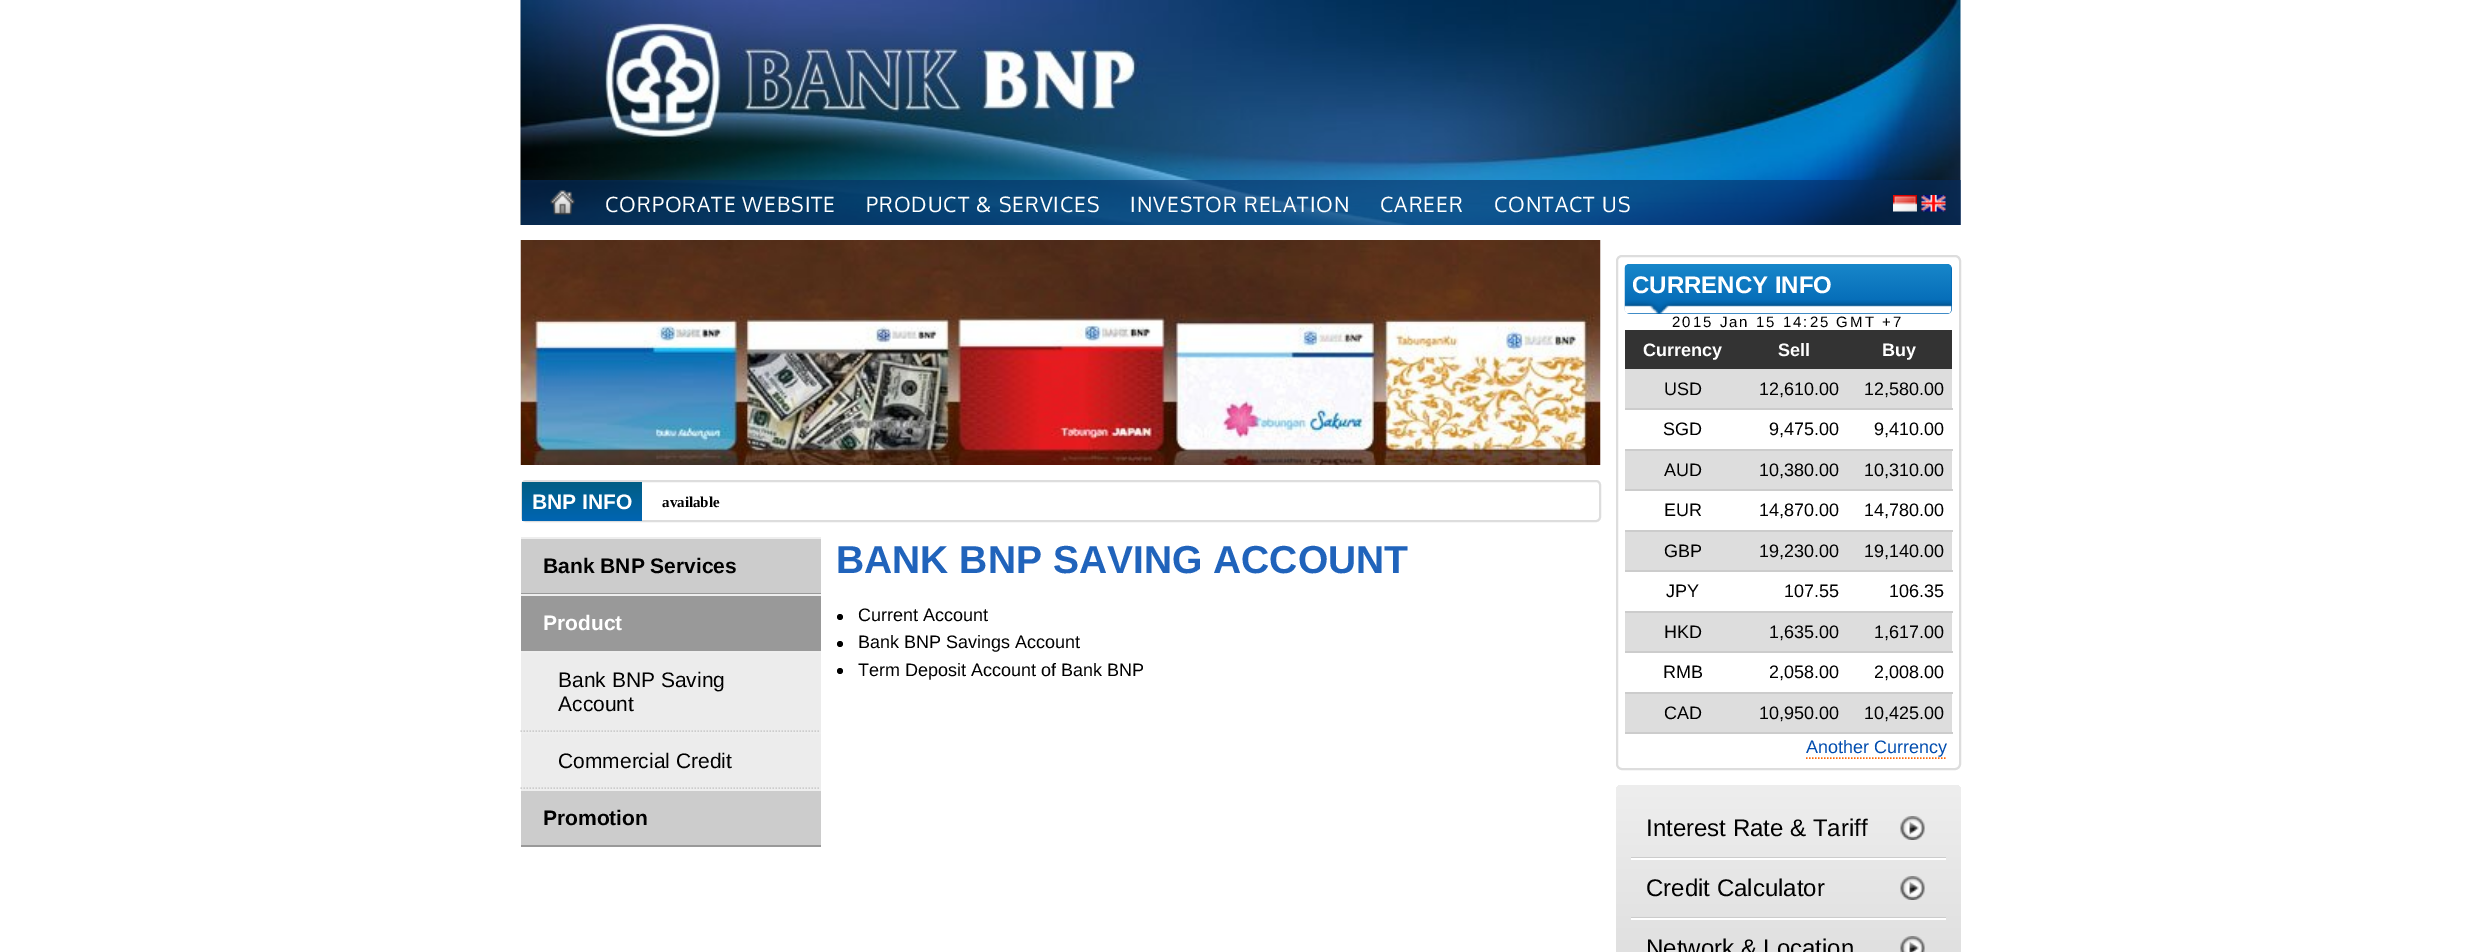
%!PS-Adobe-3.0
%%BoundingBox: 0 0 2481 952
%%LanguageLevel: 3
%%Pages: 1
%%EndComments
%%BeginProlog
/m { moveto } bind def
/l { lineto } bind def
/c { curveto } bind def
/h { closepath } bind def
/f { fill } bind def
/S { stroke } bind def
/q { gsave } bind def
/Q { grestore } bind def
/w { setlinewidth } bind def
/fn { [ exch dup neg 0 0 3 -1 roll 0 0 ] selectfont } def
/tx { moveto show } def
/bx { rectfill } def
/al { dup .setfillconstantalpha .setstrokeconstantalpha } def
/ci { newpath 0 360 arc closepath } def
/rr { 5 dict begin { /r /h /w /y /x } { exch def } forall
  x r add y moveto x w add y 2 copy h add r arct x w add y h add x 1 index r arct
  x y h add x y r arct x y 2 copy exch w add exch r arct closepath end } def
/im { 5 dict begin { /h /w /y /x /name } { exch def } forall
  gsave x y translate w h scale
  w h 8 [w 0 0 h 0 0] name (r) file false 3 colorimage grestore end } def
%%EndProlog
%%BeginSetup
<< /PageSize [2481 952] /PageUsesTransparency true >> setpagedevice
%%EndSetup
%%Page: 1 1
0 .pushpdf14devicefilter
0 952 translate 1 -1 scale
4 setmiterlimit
1 setgray
0 0 2481 952 bx
(image0.raw) 520 0 1441 225 im
0.6 al
0.02 0.176 0.38 setrgbcolor
521 180 1440 45 bx
1 al
(image1.raw) 550 190 25 25 im
/Oxygen-Regular 21 fn
1 setgray
605 212 m 1 0 (CORPORATE WEBSITE) ashow
866 212 m 1 0 (PRODUCT & SERVICES) ashow
1130 212 m 1 0 (INVESTOR RELATION) ashow
1380 212 m 1 0 (CAREER) ashow
1494 212 m 1 0 (CONTACT US) ashow
(image2.raw) 1893 195 24 17 im
(image3.raw) 1921 195 25 17 im
(image4.raw) 520 240 1081 225 im
0.867 setgray
2 w
522 481 1078 40 4 rr S
q 525 482 m 642 482 l 642 521 l 525 521 l 523.5 521 522 519.5 522 518 c 522 485 l 522 483.5 523.5 482 525 482 c h clip newpath
<< /ShadingType 2 /ColorSpace /DeviceRGB /Coords [582 482 582 521] /Extend [true true] /Function << /FunctionType 2 /Domain [0 1] /C0 [0 0.369 0.518] /C1 [0 0.396 0.702] /N 1 >> >> shfill Q
/LiberationSans-Bold 21 fn
1 setgray
(BNP INFO) 532 509 tx
/LiberationSerif-Bold 15 fn
0 setgray
(available) 662 507 tx
0.8 setgray
521 539 300 54 bx
0.933 setgray
521 537 300 2 bx
0.6 setgray
521 593 300 1 bx
/LiberationSans-Bold 21 fn
0 setgray
(Bank BNP Services) 543 573 tx
0.6 setgray
521 596 300 55 bx
0.933 setgray
521 594 300 2 bx
1 setgray
(Product) 543 630 tx
0.925 setgray
521 653 300 79 bx
0.933 setgray
521 651 300 2 bx
0.8 setgray
1.5 w
[1.5 1.5] 0 setdash
520.5 731 m 820.5 731 l S
/LiberationSans-Regular 21 fn
0 setgray
(Bank BNP Saving) 558 687 tx
(Account) 558 711 tx
0.925 setgray
521 734 300 55 bx
0.933 setgray
521 732 300 2 bx
0.8 setgray
520.5 788 m 820.5 788 l S
0 setgray
(Commercial Credit) 558 768 tx
0.8 setgray
521 791 300 54 bx
0.933 setgray
521 789 300 2 bx
0.6 setgray
521 845 300 2 bx
/LiberationSans-Bold 21 fn
0 setgray
(Promotion) 543 825 tx
/LiberationSans-Bold 39 fn
0.125 0.388 0.733 setrgbcolor
(BANK BNP SAVING ACCOUNT) 836 573 tx
0 setgray
840 617 3 ci f
/LiberationSans-Regular 18 fn
(Current Account) 858 621 tx
840 644 3 ci f
(Bank BNP Savings Account) 858 648 tx
840 671 3 ci f
(Term Deposit Account of Bank BNP) 858 676 tx
0.867 setgray
2 w
[] 0 setdash
1617 256 343 513 5 rr S
0 0.396 0.702 setrgbcolor
1625 264 327 50 5 rr f
(image5.raw) 1624 264 328 50 im
/LiberationSans-Bold 24 fn
1 setgray
(CURRENCY INFO) 1632 293 tx
/LiberationSans-Regular 15 fn
0 setgray
1672 327 m 2 0 (2015 Jan 15 14:25 GMT +7) ashow
0.2 setgray
1625 330 327 39 bx
/LiberationSans-Bold 18 fn
1 setgray
(Currency) 1643 356 tx
(Sell) 1778 356 tx
(Buy) 1882 356 tx
0.867 setgray
1625 369 327 39 bx
/LiberationSans-Regular 18 fn
0 setgray
(USD) 1664 395 tx
(12,610.00) 1759 395 tx
0.8 setgray
1625 408 328 2 bx
0 setgray
(12,580.00) 1864 395 tx
(SGD) 1663 435 tx
(9,475.00) 1769 435 tx
0.8 setgray
1625 449 328 2 bx
0 setgray
(9,410.00) 1874 435 tx
0.867 setgray
1625 451 327 38 bx
0 setgray
(AUD) 1664 476 tx
(10,380.00) 1759 476 tx
0.8 setgray
1625 489 328 2 bx
0 setgray
(10,310.00) 1864 476 tx
(EUR) 1664 516 tx
(14,870.00) 1759 516 tx
0.8 setgray
1625 530 328 2 bx
0 setgray
(14,780.00) 1864 516 tx
0.867 setgray
1625 532 327 38 bx
0 setgray
(GBP) 1664 557 tx
(19,230.00) 1759 557 tx
0.8 setgray
1625 570 328 2 bx
0 setgray
(19,140.00) 1864 557 tx
(JPY) 1666 597 tx
(107.55) 1784 597 tx
0.8 setgray
1625 611 328 2 bx
0 setgray
(106.35) 1889 597 tx
0.867 setgray
1625 613 327 38 bx
0 setgray
(HKD) 1664 638 tx
(1,635.00) 1769 638 tx
0.8 setgray
1625 651 328 2 bx
0 setgray
(1,617.00) 1874 638 tx
(RMB) 1663 678 tx
(2,058.00) 1769 678 tx
0.8 setgray
1625 692 328 2 bx
0 setgray
(2,008.00) 1874 678 tx
0.867 setgray
1625 694 327 38 bx
0 setgray
(CAD) 1664 719 tx
(10,950.00) 1759 719 tx
0.8 setgray
1625 732 328 2 bx
0 setgray
(10,425.00) 1864 719 tx
0 0.298 0.682 setrgbcolor
(Another Currency) 1806 753 tx
1 0.4 0 setrgbcolor
1.5 w
[1.5 1.5] 0 setdash
1806 758 m 1947 758 l S
q 1616 785 345 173 6 rr clip newpath
<< /ShadingType 2 /ColorSpace /DeviceRGB /Coords [1788 785 1788 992] /Extend [true true] /Function << /FunctionType 2 /Domain [0 1] /C0 [0.933 0.933 0.933] /C1 [0.867 0.867 0.867] /N 1 >> >> shfill Q
(image6.raw) 1900 816 25 24 im
0.8 setgray
1631 857 315 1 bx
/LiberationSans-Regular 24 fn
0 setgray
(Interest Rate & Tariff) 1646 836 tx
(image7.raw) 1900 876 25 24 im
1 setgray
1631 858 315 2 bx
0.8 setgray
1631 917 315 1 bx
0 setgray
(Credit Calculator) 1646 896 tx
(image8.raw) 1900 936 25 16 im
1 setgray
1631 918 315 2 bx
0 setgray
(Network & Location) 1646 956 tx
.poppdf14devicefilter showpage
%%EOF
